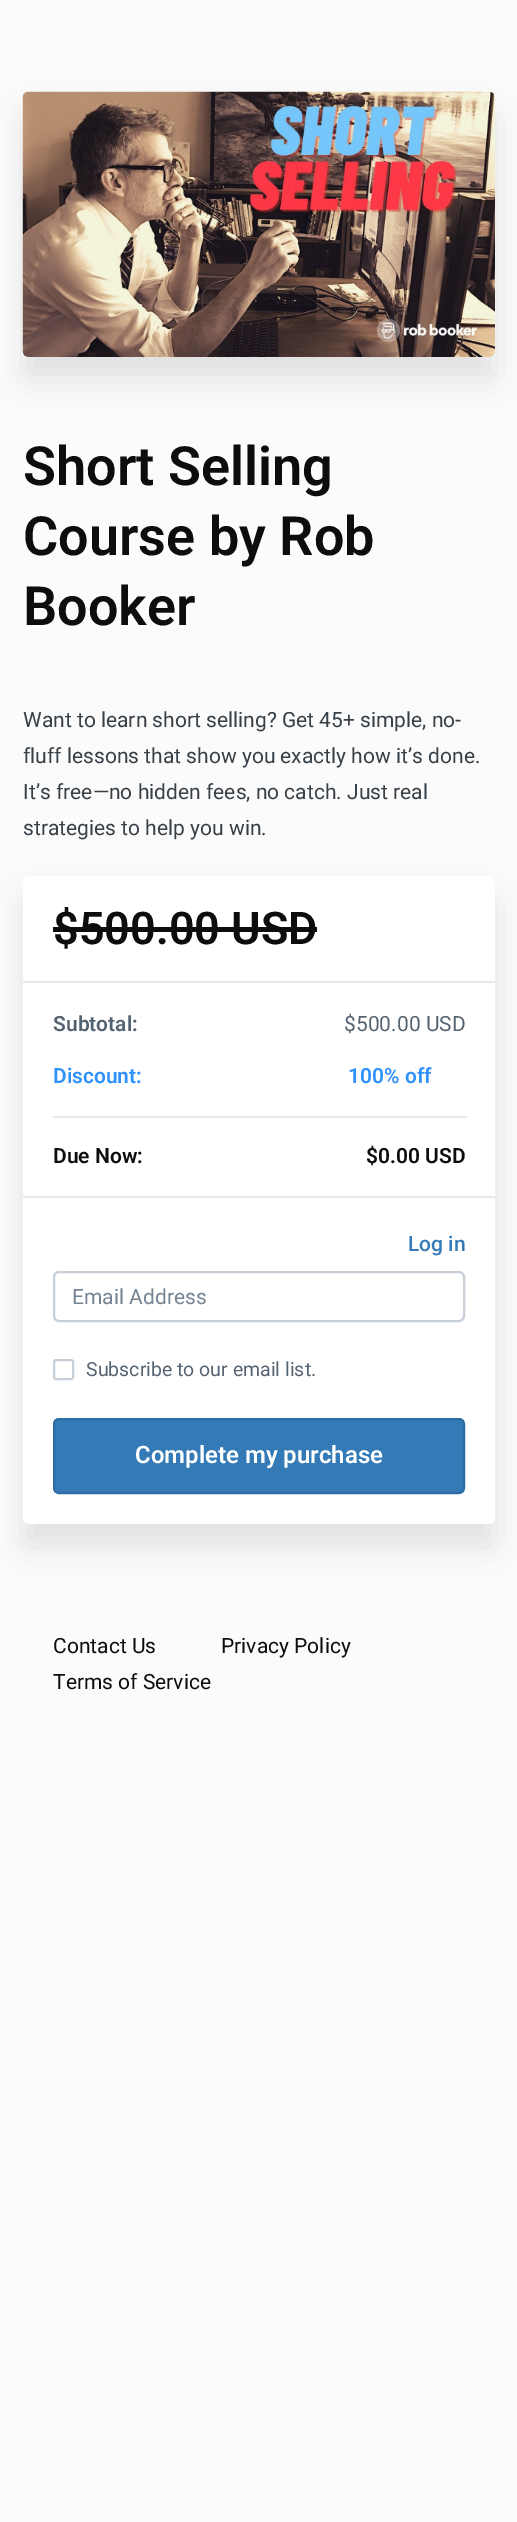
%!PS-Adobe-3.0
%%BoundingBox: 0 0 517 2522
%%LanguageLevel: 3
%%Pages: 1
%%EndComments
%%BeginProlog
/f { fill } bind def
/S { stroke } bind def
/q { gsave } bind def
/Q { grestore } bind def
/w { setlinewidth } bind def
/fn { [ exch dup neg 0 0 3 -1 roll 0 0 ] selectfont } def
/tx { moveto show } def
/bx { rectfill } def
/al { dup .setfillconstantalpha .setstrokeconstantalpha } def
/rr { 5 dict begin { /r /h /w /y /x } { exch def } forall
  x r add y moveto x w add y 2 copy h add r arct x w add y h add x 1 index r arct
  x y h add x y r arct x y 2 copy exch w add exch r arct closepath end } def
/sh { 12 dict begin { /a /b /q /h /w /y /x } { exch def } forall gsave /was 0 def
  9 -2 -9 { dup b mul 4 div /e exch def 1 sub .425 mul 2.718 exch exp 1 add a .99 .min exch div /now exch def
    1 1 now sub 1 was sub div sub al /was now def
    w h .min e 2 mul add 0 gt { x e sub y e sub w e 2 mul add h e 2 mul add
      q e add b .6 mul add w h .min 2 div e add .min 0 .max rr fill } if } for grestore end } def
/im { 5 dict begin { /h /w /y /x /name } { exch def } forall
  gsave x y translate w h scale
  w h 8 [w 0 0 h 0 0] name (r) file false 3 colorimage grestore end } def
%%EndProlog
%%BeginSetup
<< /PageSize [517 2522] /PageUsesTransparency true >> setpagedevice
%%EndSetup
%%Page: 1 1
0 .pushpdf14devicefilter
0 2522 translate 1 -1 scale
4 setmiterlimit
0.984 setgray
0 0 517 2522 bx
0 setgray
23 114 472 266 6 15 0.1 sh
(image0.raw) 22 91 473 266 im
/Roboto-SemiBold 54 fn
0.051 setgray
(Short Selling) 23 485 tx
(Course by Rob) 23 555 tx
(Booker) 23 625 tx
/Roboto-Regular 21 fn
0.216 0.247 0.278 setrgbcolor
(Want to learn short selling? Get 45+ simple, no-) 23 727 tx
(fluff lessons that show you exactly how it’s done.) 23 763 tx
(It’s free—no hidden fees, no catch. Just real) 23 799 tx
(strategies to help you win.) 23 835 tx
0 setgray
23 899 472 648 6 15 0.1 sh
1 setgray
23 876 472 648 6 rr f
0.898 0.914 0.914 setrgbcolor
23 981 472 2 bx
/Roboto-SemiBold 45 fn
0.051 setgray
($500.00 USD) 53 944 tx
53 927 264 5 bx
0.898 0.914 0.914 setrgbcolor
23 1196 472 2 bx
/Roboto-SemiBold 21 fn
0.333 0.388 0.439 setrgbcolor
(Subtotal:) 53 1031 tx
/Roboto-Regular 21 fn
($500.00 USD) 344 1031 tx
/Roboto-SemiBold 21 fn
0.18 0.569 0.988 setrgbcolor
(Discount:) 53 1083 tx
(100% off) 348 1083 tx
0.898 0.914 0.914 setrgbcolor
53 1116 414 2 bx
0.051 setgray
(Due Now:) 53 1163 tx
($0.00 USD) 366 1163 tx
/Roboto-Medium 21 fn
0.2 0.478 0.718 setrgbcolor
(Log in) 408 1251 tx
0.78 0.812 0.847 setrgbcolor
2 w
54 1272 410 49 5 rr S
/Roboto-Regular 21 fn
0.455 0.518 0.576 setrgbcolor
(Email Address) 72 1304 tx
0.78 0.812 0.847 setrgbcolor
54 1360 19 19 2 rr S
/Roboto-Regular 19.5 fn
0.333 0.388 0.439 setrgbcolor
(Subscribe to our email list.) 86 1376 tx
0.2 0.478 0.718 setrgbcolor
54 1419 410 74 5 rr q f Q
0.18 0.427 0.643 setrgbcolor
S
/Roboto-SemiBold 24 fn
1 setgray
(Complete my purchase) 135 1463 tx
/Roboto-Regular 21 fn
0.051 setgray
(Contact Us) 53 1653 tx
(Privacy Policy) 221 1653 tx
(Terms of Service) 53 1689 tx
.poppdf14devicefilter showpage
%%EOF
